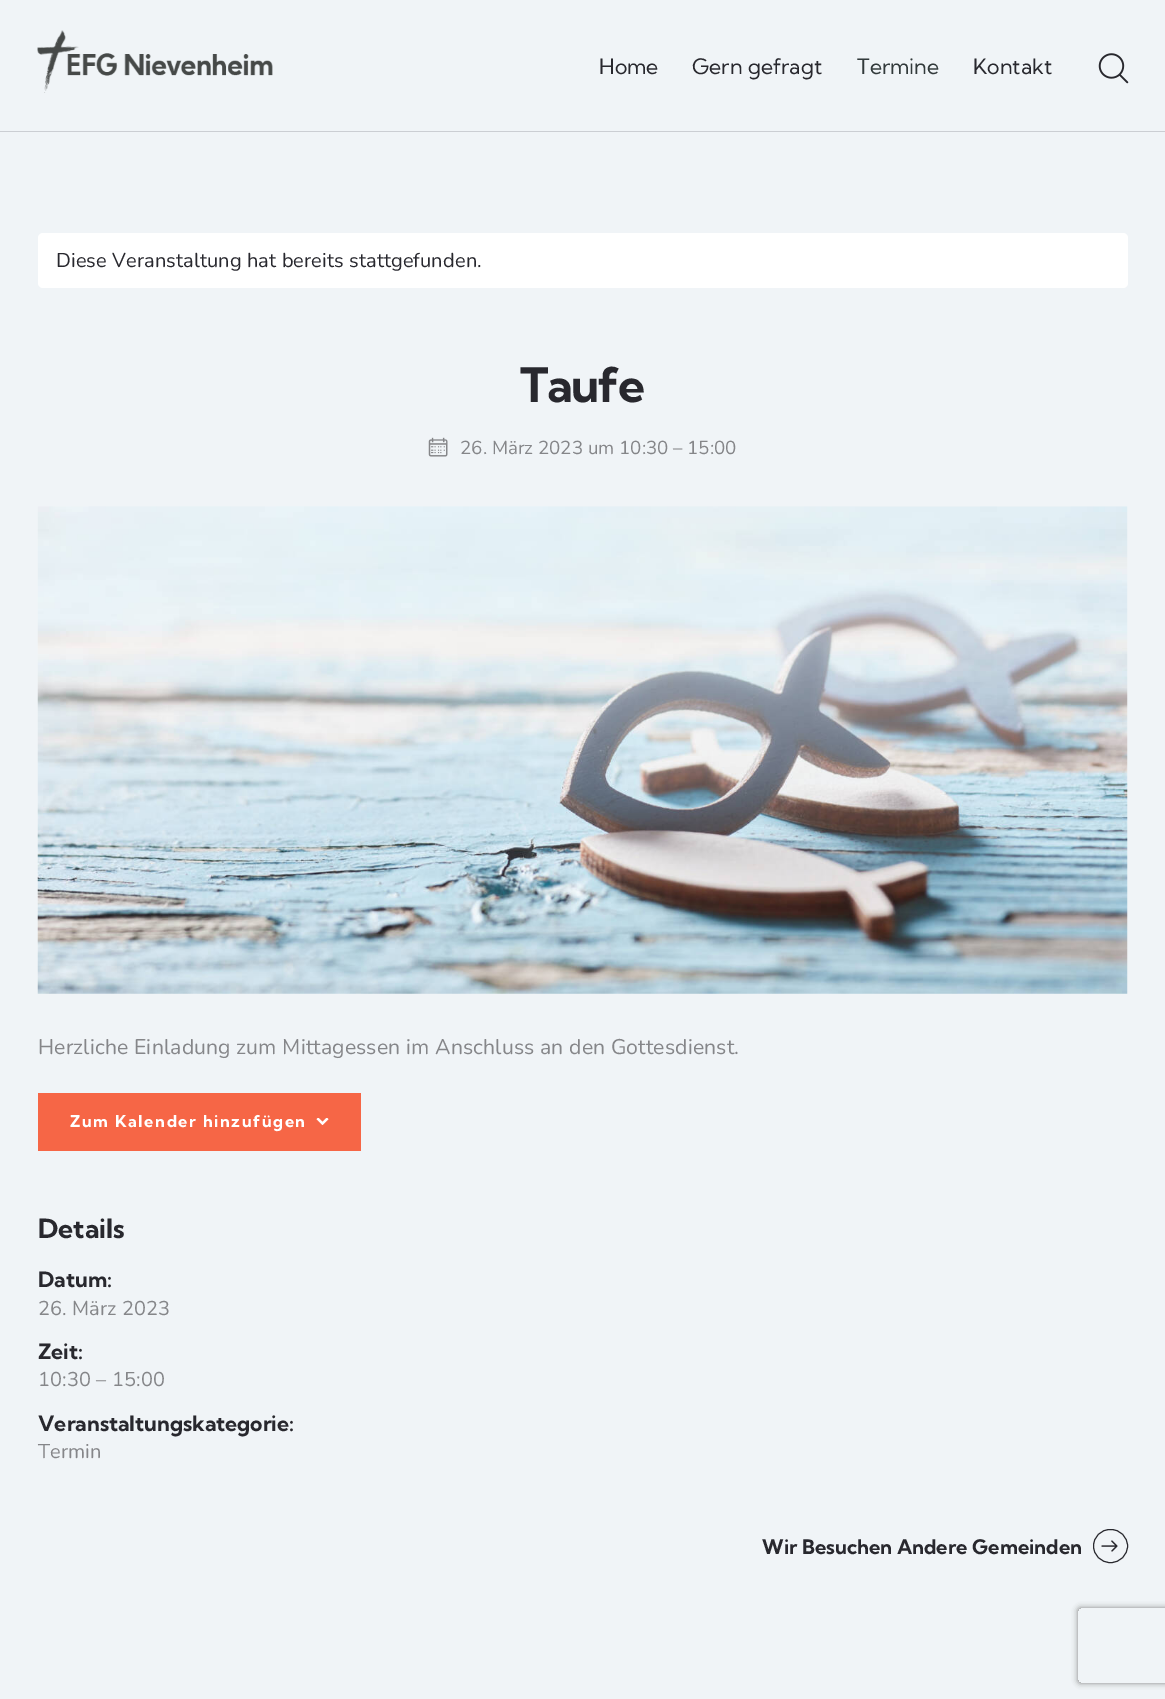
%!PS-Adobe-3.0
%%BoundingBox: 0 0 1165 1699
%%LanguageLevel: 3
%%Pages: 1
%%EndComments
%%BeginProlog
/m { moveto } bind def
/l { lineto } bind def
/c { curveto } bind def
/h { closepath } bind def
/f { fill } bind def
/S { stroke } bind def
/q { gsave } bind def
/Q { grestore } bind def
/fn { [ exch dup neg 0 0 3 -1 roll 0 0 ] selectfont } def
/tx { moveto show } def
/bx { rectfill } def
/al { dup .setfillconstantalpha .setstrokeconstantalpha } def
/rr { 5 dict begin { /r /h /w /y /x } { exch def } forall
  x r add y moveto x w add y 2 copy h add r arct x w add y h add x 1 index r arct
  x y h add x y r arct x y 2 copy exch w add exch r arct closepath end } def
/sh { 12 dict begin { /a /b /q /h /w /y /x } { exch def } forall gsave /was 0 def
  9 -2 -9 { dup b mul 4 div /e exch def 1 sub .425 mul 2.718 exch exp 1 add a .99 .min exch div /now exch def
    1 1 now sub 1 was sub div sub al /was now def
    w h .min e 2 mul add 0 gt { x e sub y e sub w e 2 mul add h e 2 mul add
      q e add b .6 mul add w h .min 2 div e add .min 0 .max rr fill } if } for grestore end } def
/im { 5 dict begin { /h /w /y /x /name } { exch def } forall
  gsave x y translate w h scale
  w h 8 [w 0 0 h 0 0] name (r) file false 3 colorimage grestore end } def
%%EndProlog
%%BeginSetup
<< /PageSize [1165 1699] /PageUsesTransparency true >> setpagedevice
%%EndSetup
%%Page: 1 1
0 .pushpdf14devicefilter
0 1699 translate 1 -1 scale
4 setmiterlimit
0.941 0.957 0.969 setrgbcolor
0 0 1165 1699 bx
0.796 0.808 0.827 setrgbcolor
0 131 1165 1 bx
(image0.raw) 37 30 236 63 im
/KumbhSans-Regular 21.25 fn
0.157 0.157 0.18 setrgbcolor
(Home) 599 74 tx
(Gern gefragt) 692 74 tx
0.196 0.227 0.231 setrgbcolor
(Termine) 857 74 tx
0.157 0.157 0.18 setrgbcolor
(Kontakt) 973 74 tx
(image1.raw) 1098 53 31 31 im
1 setgray
38 233 1090 55 5 rr f
/Nunito-Regular 20 fn
0.157 0.157 0.18 setrgbcolor
56 267 m 0.12 0 (Diese Veranstaltung hat bereits stattgefunden.) ashow
/KumbhSans-Bold 47.5 fn
520 402 m -1.5 0 (Taufe) ashow
(image2.raw) 428 437 20 20 im
/Nunito-Regular 18.75 fn
0.522 0.525 0.537 setrgbcolor
(26. März 2023 um 10:30) 460 454 tx
(– 15:00) 673 454 tx
(image3.raw) 37 506 1091 488 im
/Nunito-Regular 21.25 fn
38 1054 m 0.12 0 (Herzliche Einladung zum Mittagessen im Anschluss an den Gottesdienst.) ashow
0.965 0.4 0.275 setrgbcolor
38 1093 323 58 bx
/KumbhSans-Bold 16.25 fn
1 setgray
70 1127 m 1.6 0 (Zum Kalender hinzufügen) ashow
(image4.raw) 316 1118 13 7 im
/KumbhSans-Bold 26.5 fn
0.157 0.157 0.18 setrgbcolor
(Details) 38 1238 tx
/KumbhSans-Bold 21.25 fn
(Datum:) 38 1287 tx
/Nunito-Regular 20 fn
0.522 0.525 0.537 setrgbcolor
38 1315 m 0.12 0 (26. März 2023) ashow
/KumbhSans-Bold 21.25 fn
0.157 0.157 0.18 setrgbcolor
(Zeit:) 38 1359 tx
/Nunito-Regular 20 fn
0.522 0.525 0.537 setrgbcolor
38 1386 m 0.12 0 (10:30 – 15:00) ashow
/KumbhSans-Bold 21.25 fn
0.157 0.157 0.18 setrgbcolor
(Veranstaltungskategorie:) 38 1431 tx
/Nunito-Regular 20 fn
0.522 0.525 0.537 setrgbcolor
38 1458 m 0.12 0 (Termin) ashow
/KumbhSans-Bold 20 fn
0.157 0.157 0.18 setrgbcolor
(Wir Besuchen Andere Gemeinden) 762 1554 tx
1093.5 1529.5 34 33 16.5 rr S
(image5.raw) 1101 1540 17 12 im
q
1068 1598 m 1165 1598 l 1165 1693 l 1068 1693 l h 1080.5 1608 m 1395.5 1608 l 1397 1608 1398 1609 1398 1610.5 c 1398 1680.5 l 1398 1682 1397 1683 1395.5 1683 c 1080.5 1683 l 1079 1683 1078 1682 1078 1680.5 c 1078 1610.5 l 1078 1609 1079 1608 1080.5 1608 c h eoclip newpath
0.502 setgray
1078 1608 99 75 2.5 3 1 sh
Q
.poppdf14devicefilter showpage
%%EOF
